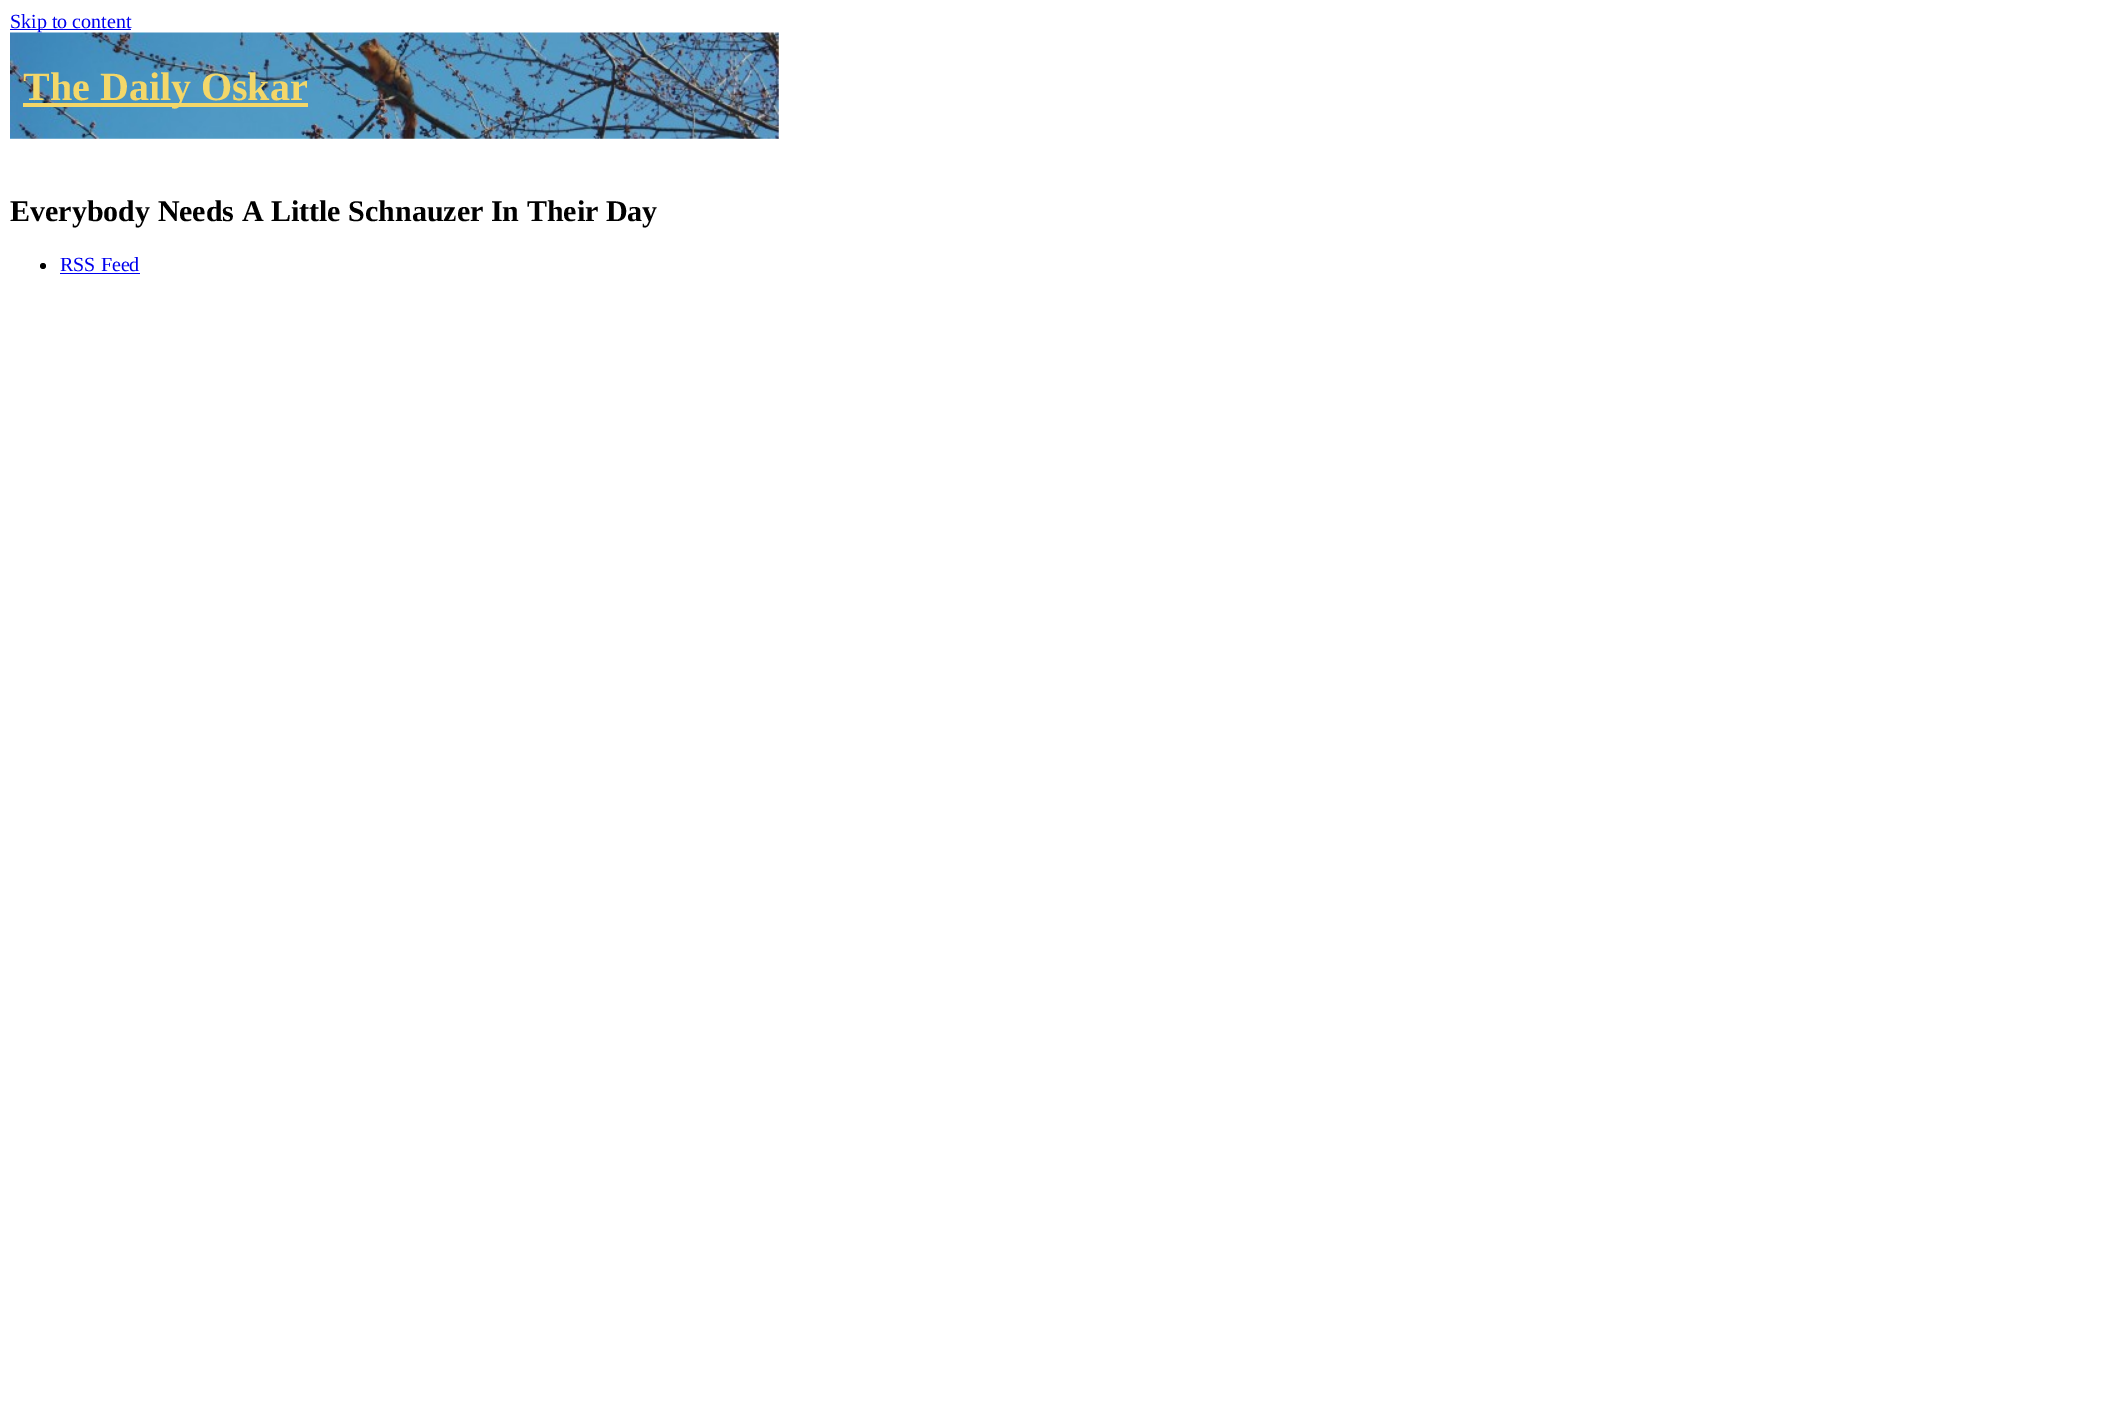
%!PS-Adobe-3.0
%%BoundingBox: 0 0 2119 1407
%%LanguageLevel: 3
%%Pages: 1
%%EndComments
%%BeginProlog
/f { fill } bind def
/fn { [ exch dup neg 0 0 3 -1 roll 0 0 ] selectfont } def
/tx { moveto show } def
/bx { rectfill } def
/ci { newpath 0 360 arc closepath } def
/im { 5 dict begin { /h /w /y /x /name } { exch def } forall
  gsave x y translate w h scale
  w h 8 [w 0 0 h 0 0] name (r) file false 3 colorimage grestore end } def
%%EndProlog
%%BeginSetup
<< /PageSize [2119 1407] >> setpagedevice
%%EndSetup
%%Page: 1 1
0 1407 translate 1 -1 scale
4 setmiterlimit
1 setgray
0 0 2119 1407 bx
0 0 0.933 setrgbcolor
10 29 121 1 bx
(image0.raw) 10 32 769 107 im
/LiberationSerif-Regular 20 fn
(Skip to content) 10 28 tx
0.953 0.843 0.412 setrgbcolor
23 103 285 4 bx
/LiberationSerif-Bold 40 fn
(The Daily Oskar) 23 100 tx
/LiberationSerif-Bold 30 fn
0 setgray
(Everybody Needs A Little Schnauzer In Their Day) 10 221 tx
43 266 3 ci f
/LiberationSerif-Regular 20 fn
0 0 0.933 setrgbcolor
(RSS Feed) 60 271 tx
60 273 80 1 bx
showpage
%%EOF
